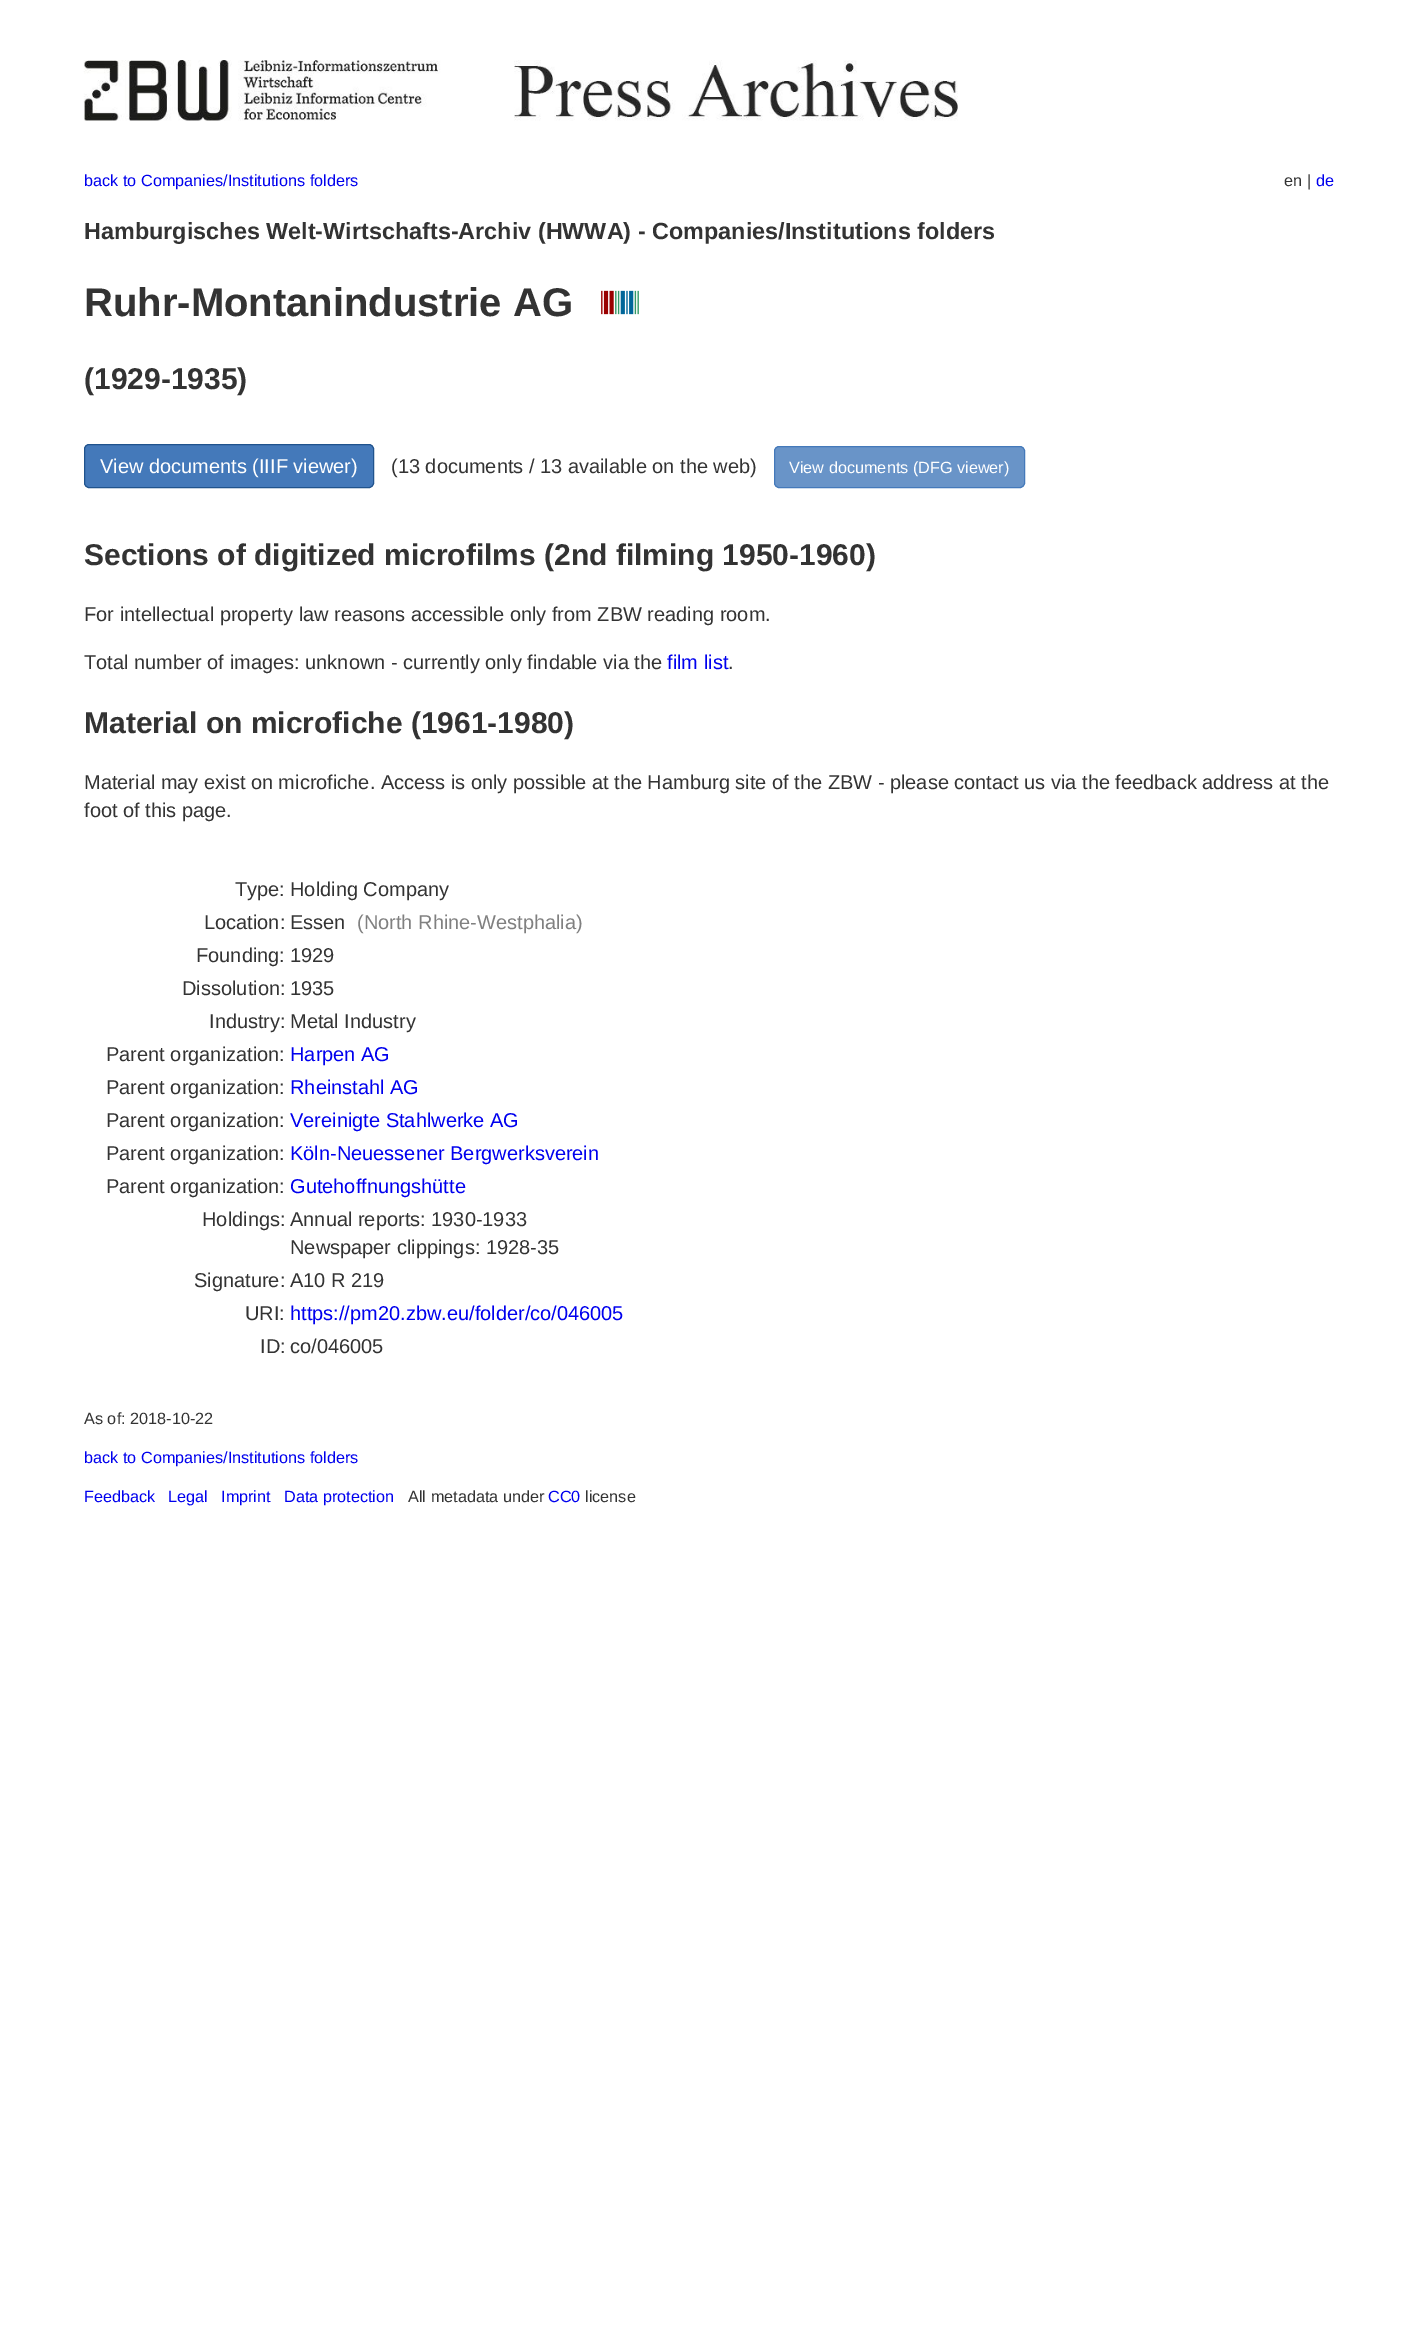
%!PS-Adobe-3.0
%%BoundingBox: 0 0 1417 2350
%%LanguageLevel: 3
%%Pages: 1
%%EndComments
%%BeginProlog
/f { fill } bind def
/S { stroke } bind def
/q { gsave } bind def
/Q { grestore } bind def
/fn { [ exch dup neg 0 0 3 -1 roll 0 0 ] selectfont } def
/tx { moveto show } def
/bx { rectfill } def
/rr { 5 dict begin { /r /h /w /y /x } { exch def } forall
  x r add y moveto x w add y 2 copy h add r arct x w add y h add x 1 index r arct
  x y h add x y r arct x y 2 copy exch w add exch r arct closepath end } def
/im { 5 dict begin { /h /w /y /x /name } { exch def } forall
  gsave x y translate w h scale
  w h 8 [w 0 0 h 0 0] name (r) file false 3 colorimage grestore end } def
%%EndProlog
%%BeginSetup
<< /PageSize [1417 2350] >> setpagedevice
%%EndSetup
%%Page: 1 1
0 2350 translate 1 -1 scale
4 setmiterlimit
1 setgray
0 0 1417 2350 bx
(image0.raw) 83 60 875 61 im
/LiberationSans-Regular 16.25 fn
0 0 0.933 setrgbcolor
(back to Companies/Institutions folders) 84 186 tx
0.2 setgray
(en |) 1284 186 tx
0 0 0.933 setrgbcolor
(de) 1316 186 tx
/LiberationSans-Bold 23.4 fn
0.2 setgray
(Hamburgisches Welt-Wirtschafts-Archiv \(HWWA\) - Companies/Institutions folders) 84 239 tx
/LiberationSans-Bold 40 fn
(Ruhr-Montanindustrie AG) 84 316 tx
(image1.raw) 601 290 38 25 im
/LiberationSans-Bold 30 fn
(\(1929-1935\)) 84 389 tx
0.267 0.475 0.729 setrgbcolor
84.5 444.5 289 43 4.5 rr q f Q
0.125 0.325 0.553 setrgbcolor
S
/LiberationSans-Regular 20 fn
1 setgray
(View documents \(IIIF viewer\)) 100 473 tx
0.2 setgray
(\(13 documents / 13 available on the web\)) 391 473 tx
0.412 0.58 0.784 setrgbcolor
774.5 446.5 250 41 4.5 rr q f Q
0.267 0.475 0.729 setrgbcolor
S
/LiberationSans-Regular 16.25 fn
1 setgray
(View documents \(DFG viewer\)) 789 473 tx
/LiberationSans-Bold 30 fn
0.2 setgray
(Sections of digitized microfilms \(2nd filming 1950-1960\)) 84 565 tx
/LiberationSans-Regular 20 fn
(For intellectual property law reasons accessible only from ZBW reading room.) 84 621 tx
(Total number of images: unknown - currently only findable via the) 84 669 tx
0 0 0.933 setrgbcolor
(film list) 667 669 tx
0.2 setgray
(.) 728 669 tx
/LiberationSans-Bold 30 fn
(Material on microfiche \(1961-1980\)) 84 733 tx
/LiberationSans-Regular 20 fn
(Material may exist on microfiche. Access is only possible at the Hamburg site of the ZBW - please contact us via the feedback address at the) 84 789 tx
(foot of this page.) 84 817 tx
(Type:) 235 896 tx
(Holding Company) 290 896 tx
(Location:) 204 929 tx
(Essen) 290 929 tx
0.502 setgray
(\(North Rhine-Westphalia\)) 357 929 tx
0.2 setgray
(Founding:) 196 962 tx
(1929) 290 962 tx
(Dissolution:) 182 995 tx
(1935) 290 995 tx
(Industry:) 209 1028 tx
(Metal Industry) 290 1028 tx
(Parent organization:) 106 1061 tx
0 0 0.933 setrgbcolor
(Harpen AG) 290 1061 tx
0.2 setgray
(Parent organization:) 106 1094 tx
0 0 0.933 setrgbcolor
(Rheinstahl AG) 290 1094 tx
0.2 setgray
(Parent organization:) 106 1127 tx
0 0 0.933 setrgbcolor
(Vereinigte Stahlwerke AG) 290 1127 tx
0.2 setgray
(Parent organization:) 106 1160 tx
0 0 0.933 setrgbcolor
(Köln-Neuessener Bergwerksverein) 290 1160 tx
0.2 setgray
(Parent organization:) 106 1193 tx
0 0 0.933 setrgbcolor
(Gutehoffnungshütte) 290 1193 tx
0.2 setgray
(Holdings:) 202 1226 tx
(Annual reports: 1930-1933) 290 1226 tx
(Newspaper clippings: 1928-35) 290 1254 tx
(Signature:) 194 1287 tx
(A10 R 219) 290 1287 tx
(URI:) 245 1320 tx
0 0 0.933 setrgbcolor
(https://pm20.zbw.eu/folder/co/046005) 290 1320 tx
0.2 setgray
(ID:) 260 1353 tx
(co/046005) 290 1353 tx
/LiberationSans-Regular 16.25 fn
(As of: 2018-10-22) 84 1424 tx
0 0 0.933 setrgbcolor
(back to Companies/Institutions folders) 84 1463 tx
(Feedback) 84 1502 tx
(Legal) 168 1502 tx
(Imprint) 221 1502 tx
(Data protection) 284 1502 tx
0.2 setgray
(All metadata under) 408 1502 tx
0 0 0.933 setrgbcolor
(CC0) 548 1502 tx
0.2 setgray
(license) 585 1502 tx
showpage
%%EOF
